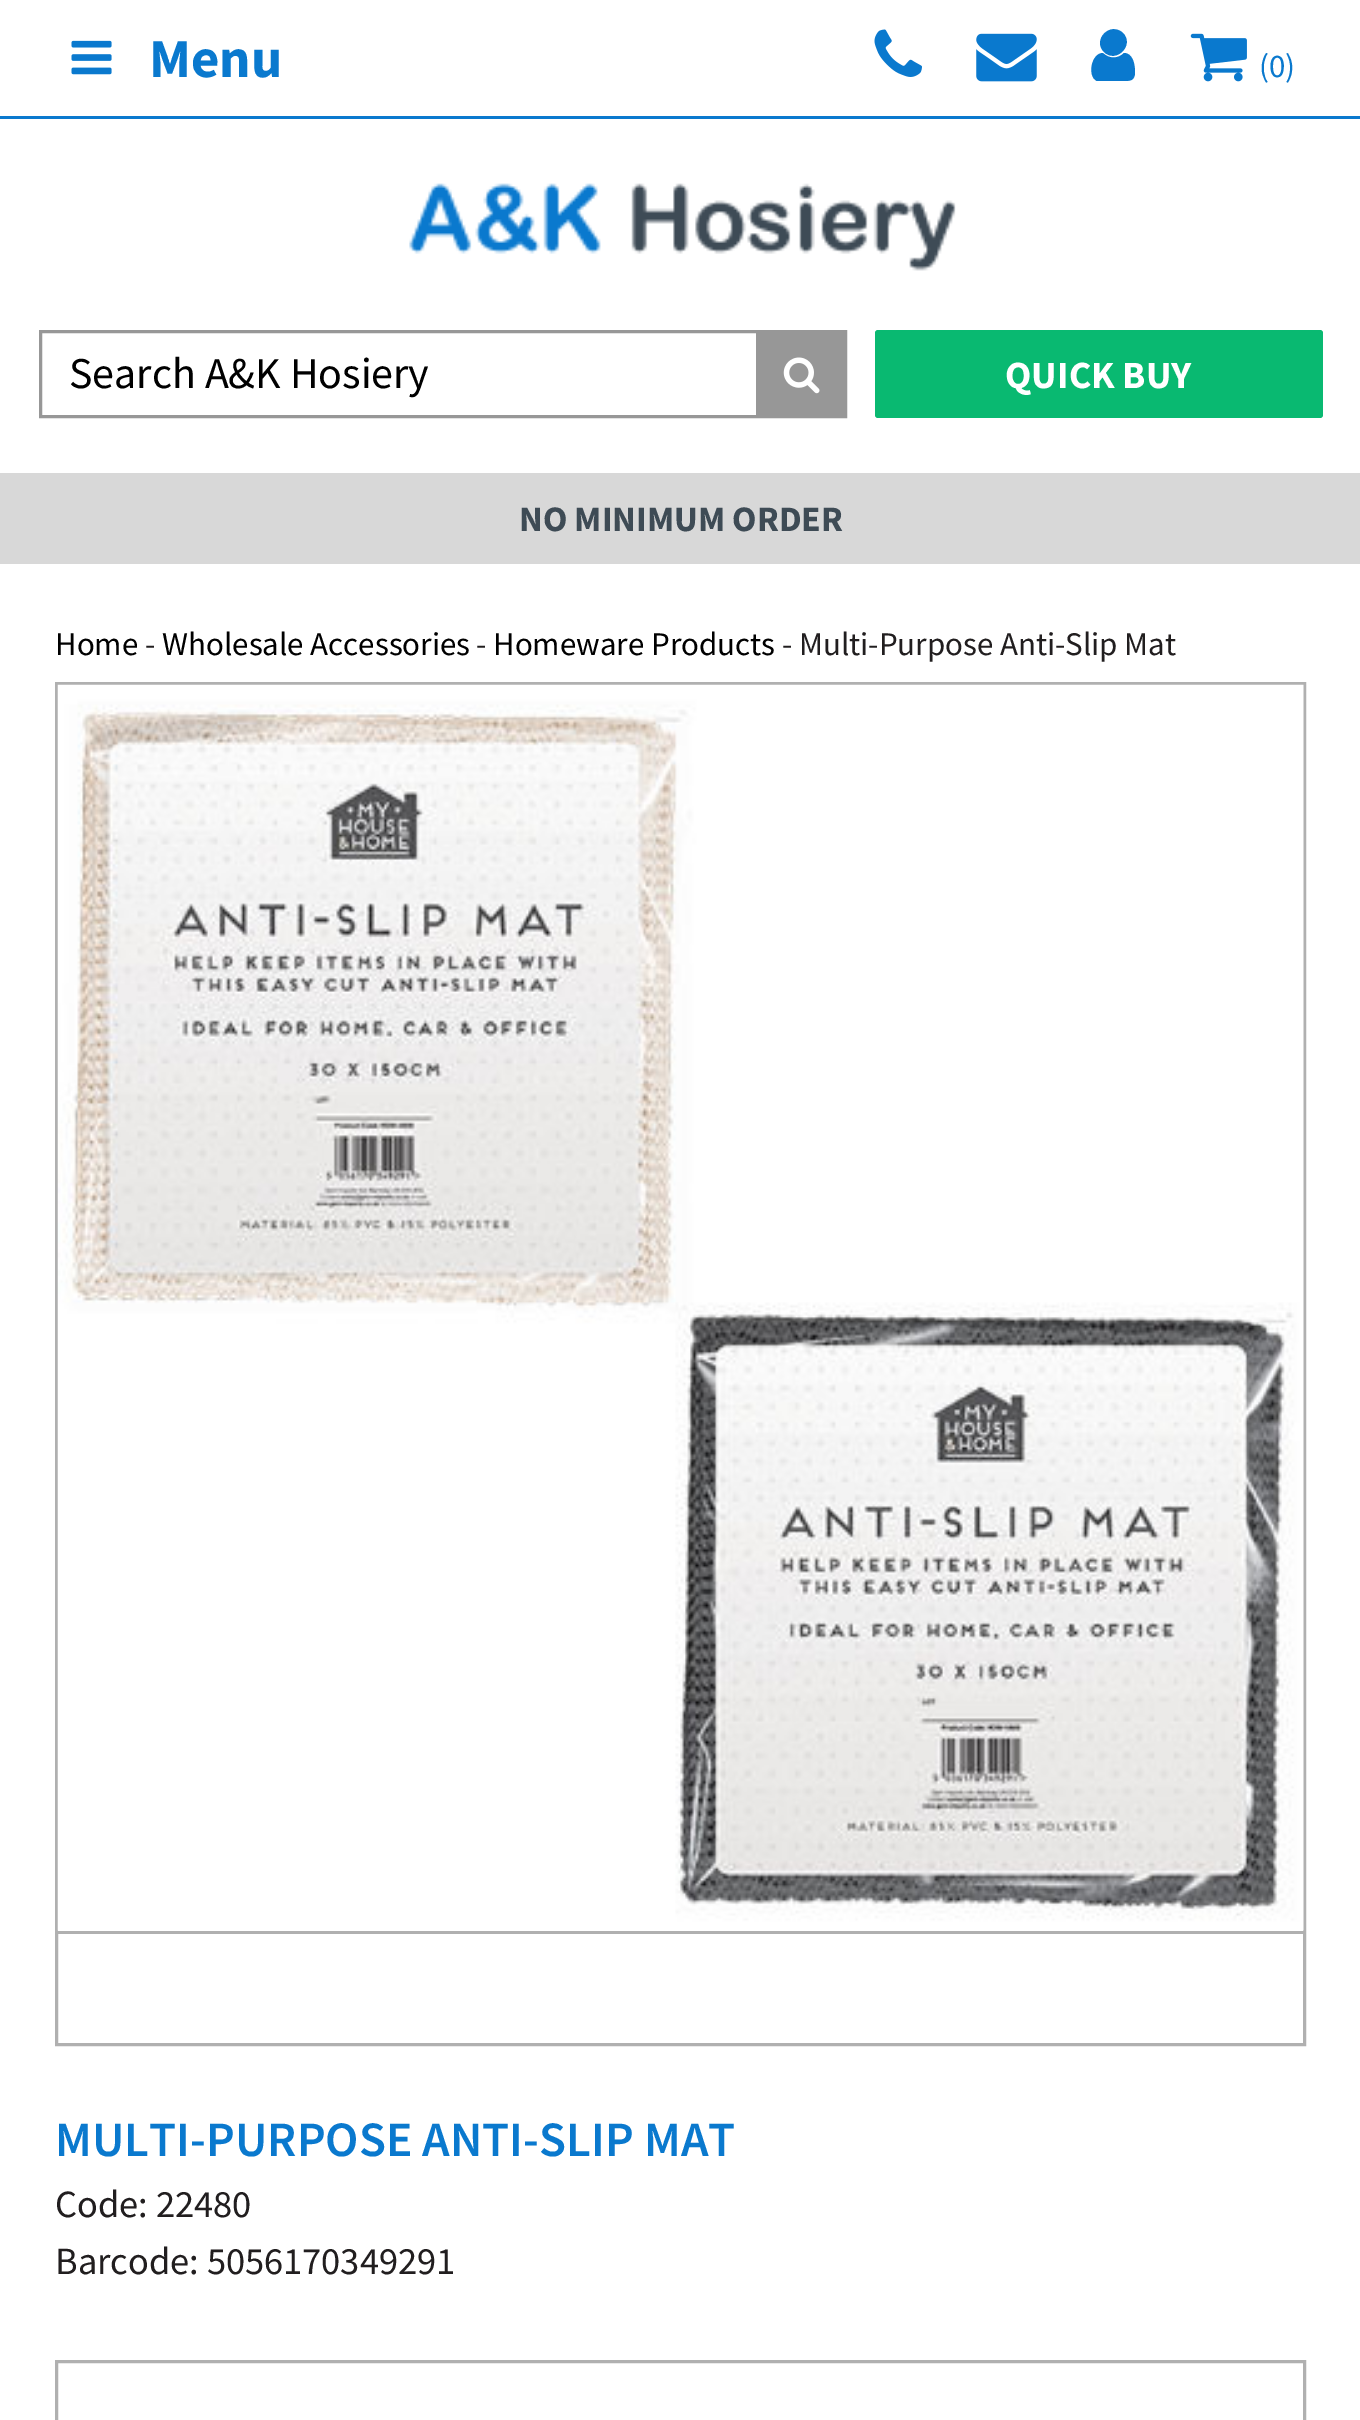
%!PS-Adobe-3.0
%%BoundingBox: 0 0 1360 2420
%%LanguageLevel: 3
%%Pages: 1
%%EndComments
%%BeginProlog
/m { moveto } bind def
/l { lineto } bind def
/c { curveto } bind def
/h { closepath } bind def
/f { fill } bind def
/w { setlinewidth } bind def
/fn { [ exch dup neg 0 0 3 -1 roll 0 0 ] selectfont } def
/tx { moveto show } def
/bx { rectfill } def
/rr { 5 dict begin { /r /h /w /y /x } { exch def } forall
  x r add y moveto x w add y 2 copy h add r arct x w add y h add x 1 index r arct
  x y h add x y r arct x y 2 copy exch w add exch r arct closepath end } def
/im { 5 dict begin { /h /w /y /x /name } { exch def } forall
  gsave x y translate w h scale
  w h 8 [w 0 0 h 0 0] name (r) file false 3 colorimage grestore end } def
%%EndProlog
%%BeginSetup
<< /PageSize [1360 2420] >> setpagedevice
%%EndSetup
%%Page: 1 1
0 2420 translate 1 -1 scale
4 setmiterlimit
1 setgray
0 0 1360 2420 bx
0.039 0.475 0.808 setrgbcolor
0 116 1360 3 bx
(image0.raw) 71 40 41 35 im
/SourceSansPro-Bold 55 fn
(Menu) 149 77 tx
(image1.raw) 874 29 48 48 im
(image2.raw) 976 33 61 49 im
1135 72 m 1135 81 1130 81 1123 81 c 1097 81 l 1087 77 1091 53 1103 53 c 1109 59 1118 59 1124 53 c 1133 53 1135 65 1135 72 c h 1123 33 m 1135 45 1116 64 1104 52 c 1092 40 1110 21 1123 33 c h f
(image3.raw) 1190 33 57 49 im
/SourceSansPro-Regular 33 fn
(\(0\)) 1259 77 tx
(image4.raw) 409 183 547 88 im
0.592 setgray
3 w
40.5 331.5 805 85 rectstroke
/SourceSansPro-Regular 44 fn
0 setgray
(Search A&K Hosiery) 69 388 tx
0.592 setgray
756 333 88 82 bx
(image5.raw) 783 357 37 37 im
0.035 0.725 0.443 setrgbcolor
875 330 448 88 3 rr f
/SourceSansPro-Bold 38.5 fn
1 setgray
(QUICK BUY) 1005 388 tx
0.847 setgray
0 473 1360 91 bx
/SourceSansPro-Bold 35.75 fn
0.243 0.294 0.333 setrgbcolor
(NO MINIMUM ORDER) 519 531 tx
/SourceSansPro-Regular 33 fn
0 setgray
(Home) 55 655 tx
0.129 0.118 0.122 setrgbcolor
(-) 145 655 tx
0 setgray
(Wholesale Accessories) 162 655 tx
0.129 0.118 0.122 setrgbcolor
(-) 476 655 tx
0 setgray
(Homeware Products) 493 655 tx
0.129 0.118 0.122 setrgbcolor
(- Multi-Purpose Anti-Slip Mat) 782 655 tx
0.69 setgray
56.5 683.5 1248 1361 rectstroke
58 1931 1246 3 bx
(image6.raw) 57 684 1247 1247 im
/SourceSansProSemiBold-SemiBold 49.5 fn
0.039 0.475 0.808 setrgbcolor
(MULTI-PURPOSE ANTI-SLIP MAT) 55 2156 tx
/SourceSansPro-Regular 38.5 fn
0.129 0.118 0.122 setrgbcolor
(Code: 22480) 55 2217 tx
(Barcode: 5056170349291) 55 2274 tx
0.69 setgray
56.5 2361.5 1248 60 rectstroke
showpage
%%EOF
